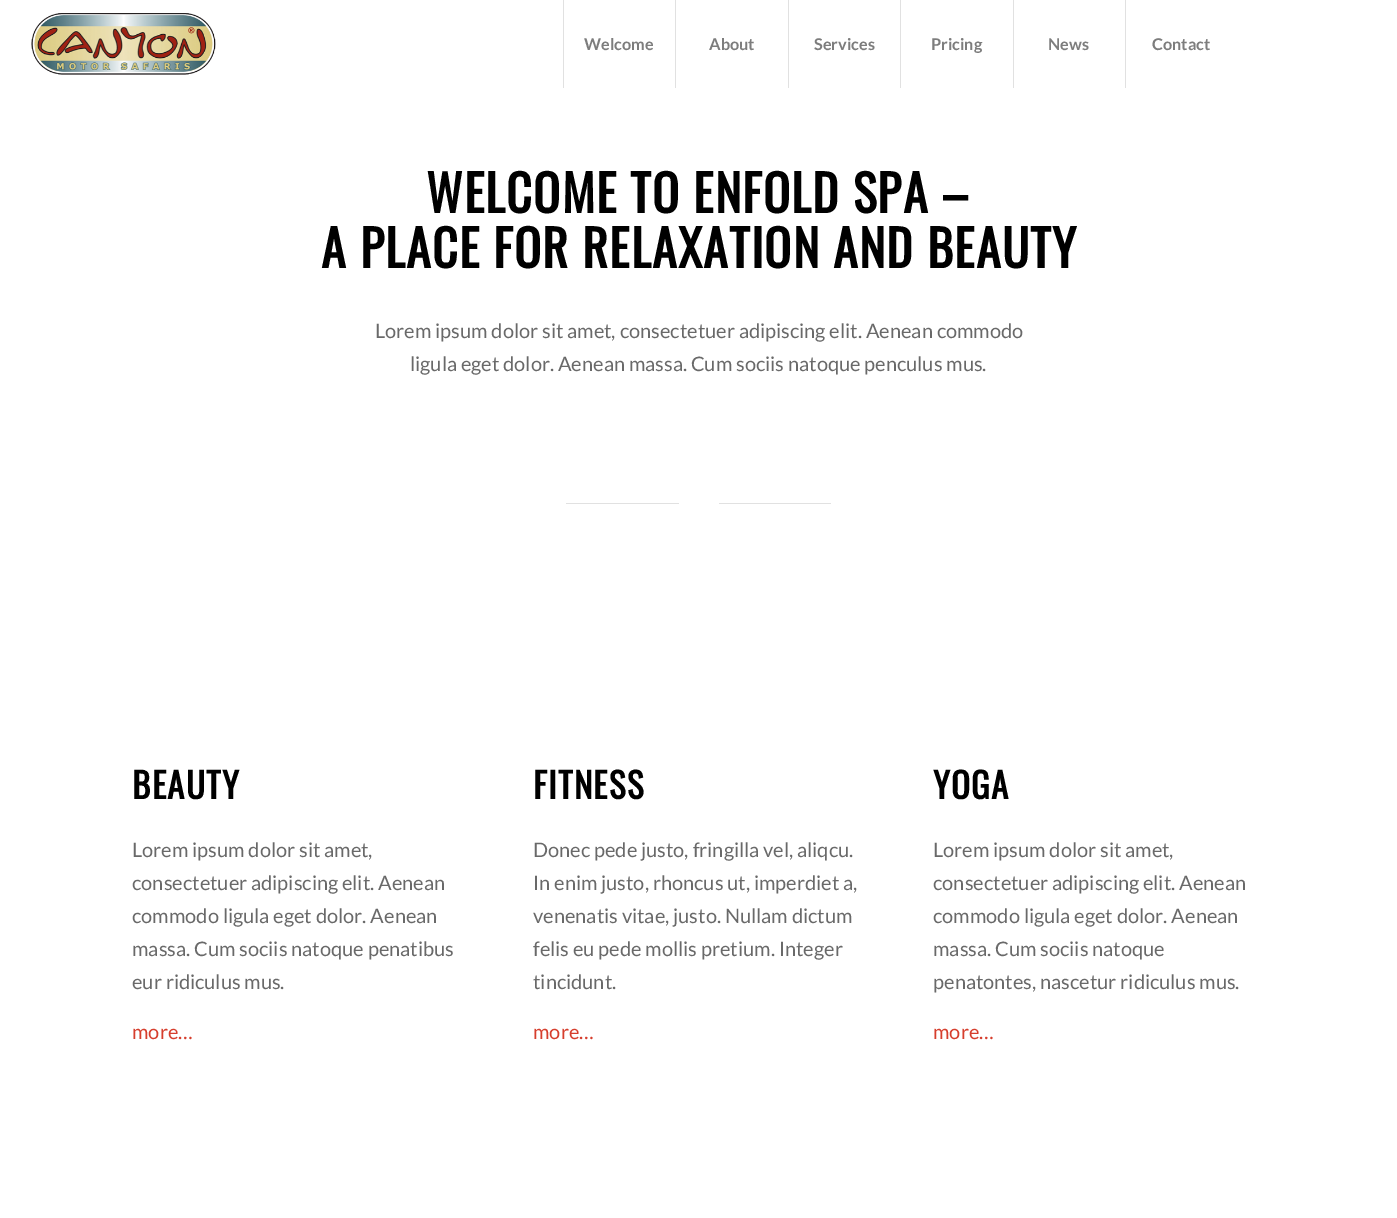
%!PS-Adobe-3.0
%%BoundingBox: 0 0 1397 1218
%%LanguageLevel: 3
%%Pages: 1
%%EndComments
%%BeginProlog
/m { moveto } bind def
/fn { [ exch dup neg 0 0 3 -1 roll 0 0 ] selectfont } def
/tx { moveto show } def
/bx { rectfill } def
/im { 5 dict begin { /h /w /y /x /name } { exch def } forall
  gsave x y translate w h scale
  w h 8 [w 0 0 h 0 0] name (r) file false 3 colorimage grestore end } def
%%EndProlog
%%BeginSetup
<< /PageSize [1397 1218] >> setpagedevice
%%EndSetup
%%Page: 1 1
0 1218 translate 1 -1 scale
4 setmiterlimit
1 setgray
0 0 1397 1218 bx
(image0.raw) 31 13 185 62 im
0.882 setgray
563 0 1 88 bx
/Lato-Bold 16.25 fn
0.49 setgray
(Welcome) 584 50 tx
0.882 setgray
675 0 1 88 bx
0.49 setgray
(About) 709 50 tx
0.882 setgray
788 0 1 88 bx
0.49 setgray
(Services) 814 50 tx
0.882 setgray
900 0 1 88 bx
0.49 setgray
(Pricing) 931 50 tx
0.882 setgray
1013 0 1 88 bx
0.49 setgray
(News) 1048 50 tx
0.882 setgray
1125 0 1 88 bx
0.49 setgray
(Contact) 1152 50 tx
/Oswald-Bold 50 fn
0 setgray
426 213 m 1.25 0 (WELCOME TO ENFOLD SPA –) ashow
321 268 m 1.25 0 (A PLACE FOR RELAXATION AND BEAUTY) ashow
/Lato-Regular 20 fn
0.412 setgray
(Lorem ipsum dolor sit amet, consectetuer adipiscing elit. Aenean commodo) 375 338 tx
(ligula eget dolor. Aenean massa. Cum sociis natoque penculus mus.) 410 371 tx
0.882 setgray
566 503 113 1 bx
719 503 112 1 bx
/Oswald-Bold 35 fn
0 setgray
132 799 m 1.25 0 (BEAUTY) ashow
/Lato-Regular 20 fn
0.412 setgray
(Lorem ipsum dolor sit amet,) 132 857 tx
(consectetuer adipiscing elit. Aenean) 132 890 tx
(commodo ligula eget dolor. Aenean) 132 923 tx
(massa. Cum sociis natoque penatibus) 132 956 tx
(eur ridiculus mus.) 132 989 tx
0.839 0.243 0.176 setrgbcolor
(more…) 132 1039 tx
/Oswald-Bold 35 fn
0 setgray
533 799 m 1.25 0 (FITNESS) ashow
/Lato-Regular 20 fn
0.412 setgray
(Donec pede justo, fringilla vel, aliqcu.) 533 857 tx
(In enim justo, rhoncus ut, imperdiet a,) 533 890 tx
(venenatis vitae, justo. Nullam dictum) 533 923 tx
(felis eu pede mollis pretium. Integer) 533 956 tx
(tincidunt.) 533 989 tx
0.839 0.243 0.176 setrgbcolor
(more…) 533 1039 tx
/Oswald-Bold 35 fn
0 setgray
933 799 m 1.25 0 (YOGA) ashow
/Lato-Regular 20 fn
0.412 setgray
(Lorem ipsum dolor sit amet,) 933 857 tx
(consectetuer adipiscing elit. Aenean) 933 890 tx
(commodo ligula eget dolor. Aenean) 933 923 tx
(massa. Cum sociis natoque) 933 956 tx
(penatontes, nascetur ridiculus mus.) 933 989 tx
0.839 0.243 0.176 setrgbcolor
(more…) 933 1039 tx
showpage
%%EOF
